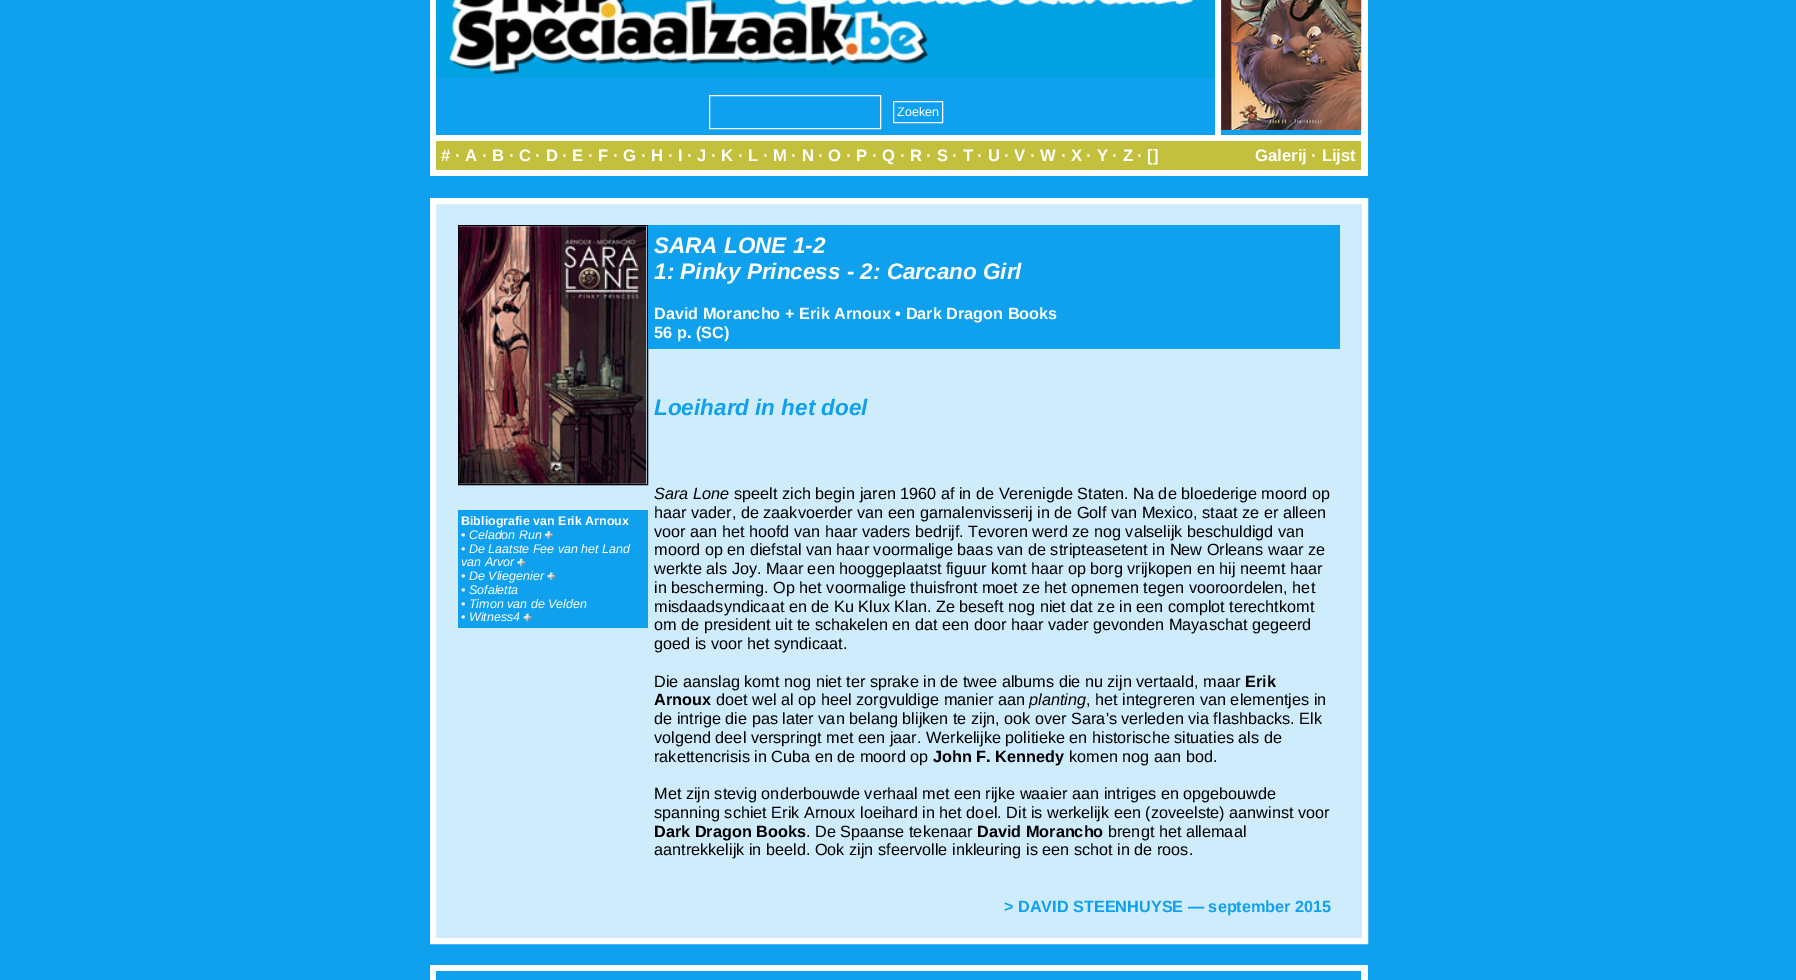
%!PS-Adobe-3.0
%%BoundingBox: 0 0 1796 980
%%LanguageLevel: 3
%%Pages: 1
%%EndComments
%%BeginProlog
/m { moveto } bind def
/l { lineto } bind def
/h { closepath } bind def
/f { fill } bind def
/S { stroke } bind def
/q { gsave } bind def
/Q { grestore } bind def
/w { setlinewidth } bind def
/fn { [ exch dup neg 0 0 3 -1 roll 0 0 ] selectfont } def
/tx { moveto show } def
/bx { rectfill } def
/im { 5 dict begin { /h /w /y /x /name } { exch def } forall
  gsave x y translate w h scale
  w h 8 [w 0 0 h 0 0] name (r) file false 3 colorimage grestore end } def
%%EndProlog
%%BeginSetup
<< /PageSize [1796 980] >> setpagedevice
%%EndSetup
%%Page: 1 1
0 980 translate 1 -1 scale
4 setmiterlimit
0.059 0.631 0.933 setrgbcolor
0 0 1796 980 bx
1 setgray
1361 0 7 176 bx
430 170 938 6 bx
430 0 6 176 bx
(image0.raw) 436 0 779 78 im
709.5 95.5 171 33 rectstroke
893.5 101.5 49 21 rectstroke
/LiberationSans-Regular 12.5 fn
(Zoeken) 897 116 tx
1215 0 6 135 bx
(image1.raw) 1221 0 141 130 im
436 135 925 6 bx
0.765 0.753 0.239 setrgbcolor
436 141 925 29 bx
/LiberationSans-Bold 16.65 fn
1 setgray
(# · A · B · C · D · E · F · G · H · I · J · K · L · M · N · O · P · Q · R · S · T · U · V · W · X · Y · Z · []) 441 161 tx
(Galerij · Lijst) 1255 161 tx
0.812 0.925 0.988 setrgbcolor
433 201 m 1365 201 l 1365 941 l 433 941 l h q f Q
1 setgray
6 w
S
0 setgray
1 w
458.5 225.5 189 259 rectstroke
(image2.raw) 458 226 189 258 im
0.059 0.631 0.933 setrgbcolor
458 510 190 118 bx
/LiberationSans-Bold 12.5 fn
1 setgray
(Bibliografie van Erik Arnoux) 461 525 tx
/LiberationSans-Italic 12.5 fn
(• Celadon Run) 461 539 tx
(image3.raw) 545 531 8 8 im
(• De Laatste Fee van het Land) 461 553 tx
(van Arvor) 461 566 tx
(image4.raw) 517 558 8 9 im
(• De Vliegenier) 461 580 tx
(image5.raw) 547 572 8 8 im
(• Sofaletta) 461 594 tx
(• Timon van de Velden) 461 608 tx
(• Witness4) 461 621 tx
(image6.raw) 523 613 9 9 im
0.059 0.631 0.933 setrgbcolor
648 225 692 124 bx
/LiberationSans-BoldItalic 22.5 fn
1 setgray
(SARA LONE 1-2) 654 253 tx
(1: Pinky Princess - 2: Carcano Girl) 654 279 tx
/LiberationSans-Bold 16.25 fn
(David Morancho + Erik Arnoux • Dark Dragon Books) 654 319 tx
(56 p. \(SC\)) 654 338 tx
/LiberationSans-BoldItalic 22.5 fn
0.059 0.631 0.933 setrgbcolor
(Loeihard in het doel) 654 415 tx
/LiberationSans-Italic 16.25 fn
0 setgray
(Sara Lone) 654 499 tx
/LiberationSans-Regular 16.25 fn
(speelt zich begin jaren 1960 af in de Verenigde Staten. Na de bloederige moord op) 734 499 tx
(haar vader, de zaakvoerder van een garnalenvisserij in de Golf van Mexico, staat ze er alleen) 654 518 tx
(voor aan het hoofd van haar vaders bedrijf. Tevoren werd ze nog valselijk beschuldigd van) 654 537 tx
(moord op en diefstal van haar voormalige baas van de stripteasetent in New Orleans waar ze) 654 555 tx
(werkte als Joy. Maar een hooggeplaatst figuur komt haar op borg vrijkopen en hij neemt haar) 654 574 tx
(in bescherming. Op het voormalige thuisfront moet ze het opnemen tegen vooroordelen, het) 654 593 tx
(misdaadsyndicaat en de Ku Klux Klan. Ze beseft nog niet dat ze in een complot terechtkomt) 654 612 tx
(om de president uit te schakelen en dat een door haar vader gevonden Mayaschat gegeerd) 654 630 tx
(goed is voor het syndicaat.) 654 649 tx
(Die aanslag komt nog niet ter sprake in de twee albums die nu zijn vertaald, maar) 654 687 tx
/LiberationSans-Bold 16.25 fn
(Erik) 1245 687 tx
(Arnoux) 654 705 tx
/LiberationSans-Regular 16.25 fn
(doet wel al op heel zorgvuldige manier aan) 716 705 tx
/LiberationSans-Italic 16.25 fn
(planting) 1029 705 tx
/LiberationSans-Regular 16.25 fn
(, het integreren van elementjes in) 1086 705 tx
(de intrige die pas later van belang blijken te zijn, ook over Sara's verleden via flashbacks. Elk) 654 724 tx
(volgend deel verspringt met een jaar. Werkelijke politieke en historische situaties als de) 654 743 tx
(rakettencrisis in Cuba en de moord op) 654 762 tx
/LiberationSans-Bold 16.25 fn
(John F. Kennedy) 933 762 tx
/LiberationSans-Regular 16.25 fn
(komen nog aan bod.) 1069 762 tx
(Met zijn stevig onderbouwde verhaal met een rijke waaier aan intriges en opgebouwde) 654 799 tx
(spanning schiet Erik Arnoux loeihard in het doel. Dit is werkelijk een \(zoveelste\) aanwinst voor) 654 818 tx
/LiberationSans-Bold 16.25 fn
(Dark Dragon Books) 654 837 tx
/LiberationSans-Regular 16.25 fn
(. De Spaanse tekenaar) 806 837 tx
/LiberationSans-Bold 16.25 fn
(David Morancho) 977 837 tx
/LiberationSans-Regular 16.25 fn
(brengt het allemaal) 1108 837 tx
(aantrekkelijk in beeld. Ook zijn sfeervolle inkleuring is een schot in de roos.) 654 855 tx
/LiberationSans-Bold 16.25 fn
0.059 0.631 0.933 setrgbcolor
(> DAVID STEENHUYSE — september 2015) 1004 912 tx
1 setgray
430 965 938 6 bx
1361 965 7 15 bx
430 965 6 15 bx
showpage
%%EOF
